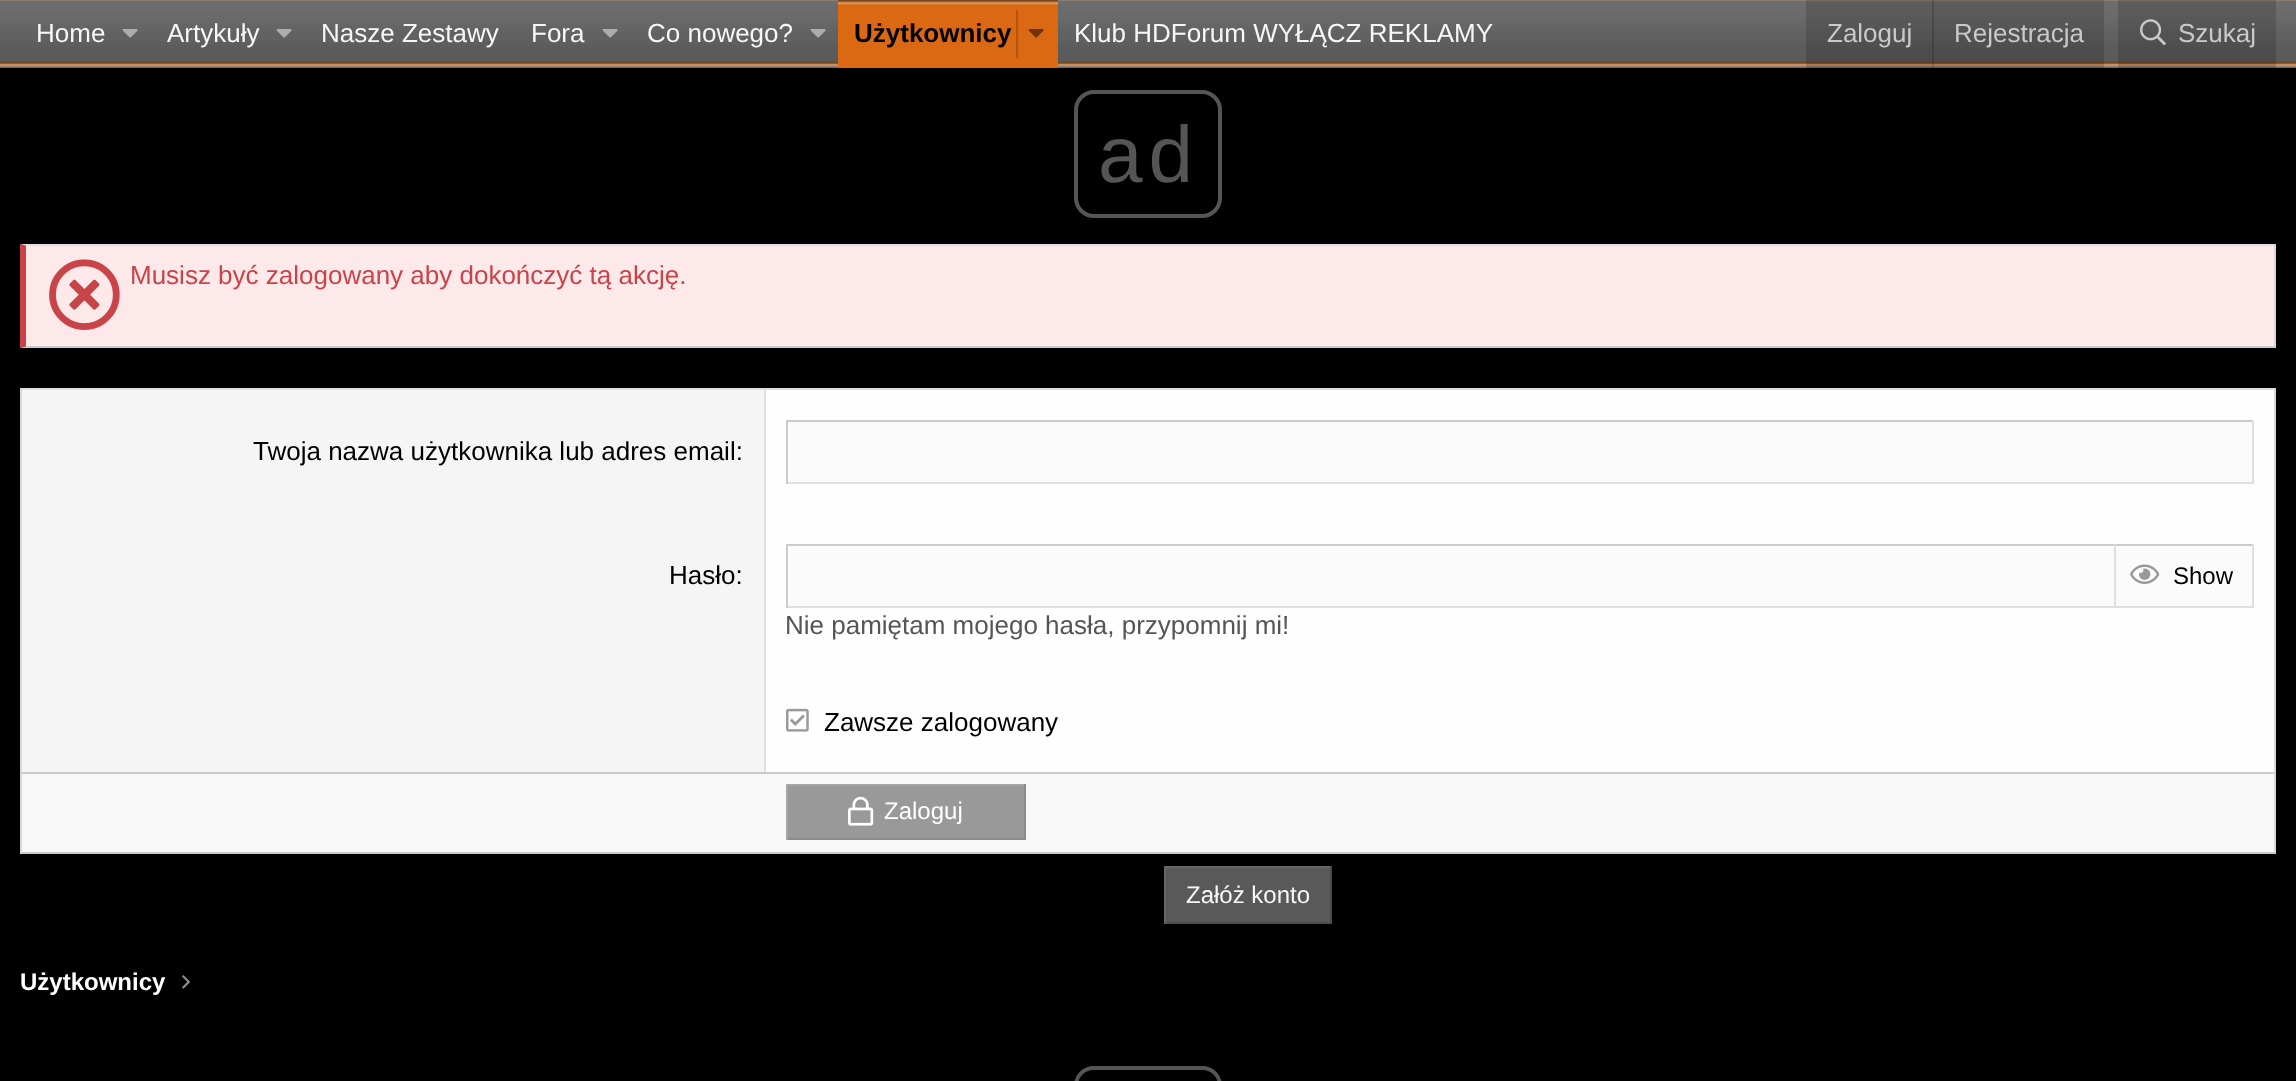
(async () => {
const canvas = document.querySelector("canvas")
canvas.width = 2296
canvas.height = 1081
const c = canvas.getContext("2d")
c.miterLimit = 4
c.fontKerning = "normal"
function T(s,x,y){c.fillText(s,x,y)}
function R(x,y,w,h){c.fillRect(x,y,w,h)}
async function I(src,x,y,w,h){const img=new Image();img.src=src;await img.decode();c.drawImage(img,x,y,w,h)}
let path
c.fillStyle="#000"
R(0,0,2296,1081)
await I("1.png",0,0,2296,68)
c.font="26px Liberation Sans"
c.fillStyle="#f7f7f7"
T("Home",36,42)
await I("2.png",122,29,16,9)
T("Artykuły",167,42)
await I("2.png",276,29,16,9)
T("Nasze Zestawy",321,42)
T("Fora",531,42)
await I("2.png",602,29,16,9)
T("Co nowego?",647,42)
await I("2.png",810,29,16,9)
await I("3.png",838,0,220,68)
c.font="bold 26px Liberation Sans"
c.fillStyle="#000"
T("Użytkownicy",854,42)
c.fillStyle="#b5560f"
R(1016,10,2,48)
await I("4.png",1028,29,16,9)
c.font="26px Liberation Sans"
c.fillStyle="#f7f7f7"
T("Klub HDForum WYŁĄCZ REKLAMY",1074,42)
c.fillStyle="#00000026"
R(1806,0,298,68)
c.fillStyle="#c9c9c9"
T("Zaloguj",1827,42)
c.fillStyle="#00000026"
R(1932,0,2,68)
c.fillStyle="#c9c9c9"
T("Rejestracja",1954,42)
c.fillStyle="#00000026"
R(2118,0,158,68)
await I("5.png",2140,19,26,27)
c.fillStyle="#c9c9c9"
T("Szukaj",2178,42)
c.beginPath()
c.roundRect(1076,92,144,124,18)
c.strokeStyle="#555"
c.lineWidth=4
c.stroke()
c.letterSpacing="6px"
c.font="80px Liberation Sans"
c.fillStyle="#555"
T("ad",1098,182)
c.fillStyle="#fde9e9"
R(26,246,2248,100)
c.fillStyle="#dfdfdf"
path = new Path2D("M20 244h2256l-2 2h-2248z")
c.fill(path)
c.fillStyle="#d8d8d8"
R(2274,244,2,104)
c.fillStyle="#cbcbcb"
path = new Path2D("M2276 348h-2256l6-2h2248z")
c.fill(path)
c.fillStyle="#c84448"
path = new Path2D("M20 348v-104l6 2v100z")
c.fill(path)
await I("6.png",49,259,71,71)
c.letterSpacing="0px"
c.font="26px Liberation Sans"
T("Musisz być zalogowany aby dokończyć tą akcję.",130,284)
c.fillStyle="#fefefe"
R(766,390,1508,382)
c.fillStyle="#dfdfdf"
R(20,388,2256,2)
c.fillStyle="#d8d8d8"
R(2274,388,2,466)
c.fillStyle="#cbcbcb"
R(20,852,2256,2)
c.fillStyle="#d8d8d8"
R(20,388,2,466)
c.fillStyle="#f5f5f5"
R(22,390,742,382)
c.fillStyle="#dfdfdf"
R(764,390,2,382)
c.fillStyle="#000"
T("Twoja nazwa użytkownika lub adres email:",253,460)
c.fillStyle="#fbfbfb"
R(788,422,1464,60)
c.fillStyle="#cbcbcb"
R(786,420,1468,2)
c.fillStyle="#dfdfdf"
R(2252,420,2,64)
R(786,482,1468,2)
c.fillStyle="#cbcbcb"
R(786,420,2,64)
c.fillStyle="#000"
T("Hasło:",669,584)
c.fillStyle="#fbfbfb"
R(788,546,1326,60)
c.fillStyle="#cbcbcb"
R(786,544,1468,2)
c.fillStyle="#dfdfdf"
R(786,606,1328,2)
c.fillStyle="#cbcbcb"
R(786,544,2,64)
c.fillStyle="#fbfbfb"
R(2116,546,136,60)
c.fillStyle="#dfdfdf"
R(2252,544,2,64)
R(2114,606,140,2)
R(2114,544,2,64)
await I("7.png",2130,564,30,20)
c.font="24px Liberation Sans"
c.fillStyle="#000"
T("Show",2173,584)
c.font="26px Liberation Sans"
c.fillStyle="#555"
T("Nie pamiętam mojego hasła, przypomnij mi!",785,634)
await I("8.png",786,708,23,24)
c.fillStyle="#000"
T("Zawsze zalogowany",824,731)
c.fillStyle="#f8f8f8"
R(22,774,2252,78)
c.fillStyle="#cbcbcb"
R(22,772,2252,2)
c.fillStyle="#999"
R(788,786,236,52)
c.fillStyle="#a6a6a6"
R(786,784,240,2)
c.fillStyle="#8c8c8c"
R(1024,784,2,56)
R(786,838,240,2)
c.fillStyle="#a6a6a6"
R(786,784,2,56)
await I("9.png",848,796,26,30)
c.font="24px Liberation Sans"
c.fillStyle="#fff"
T("Zaloguj",884,819)
c.fillStyle="#595959"
R(1166,868,164,54)
c.fillStyle="#666"
R(1164,866,168,2)
c.fillStyle="#4c4c4c"
R(1330,866,2,58)
R(1164,922,168,2)
c.fillStyle="#666"
R(1164,866,2,58)
c.fillStyle="#f7f7f7"
T("Załóż konto",1186,903)
c.font="bold 24px Liberation Sans"
c.fillStyle="#fff"
T("Użytkownicy",20,990)
await I("10.png",182,975,9,14)
c.beginPath()
c.roundRect(1076,1068,144,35,18)
c.stroke()
})()
